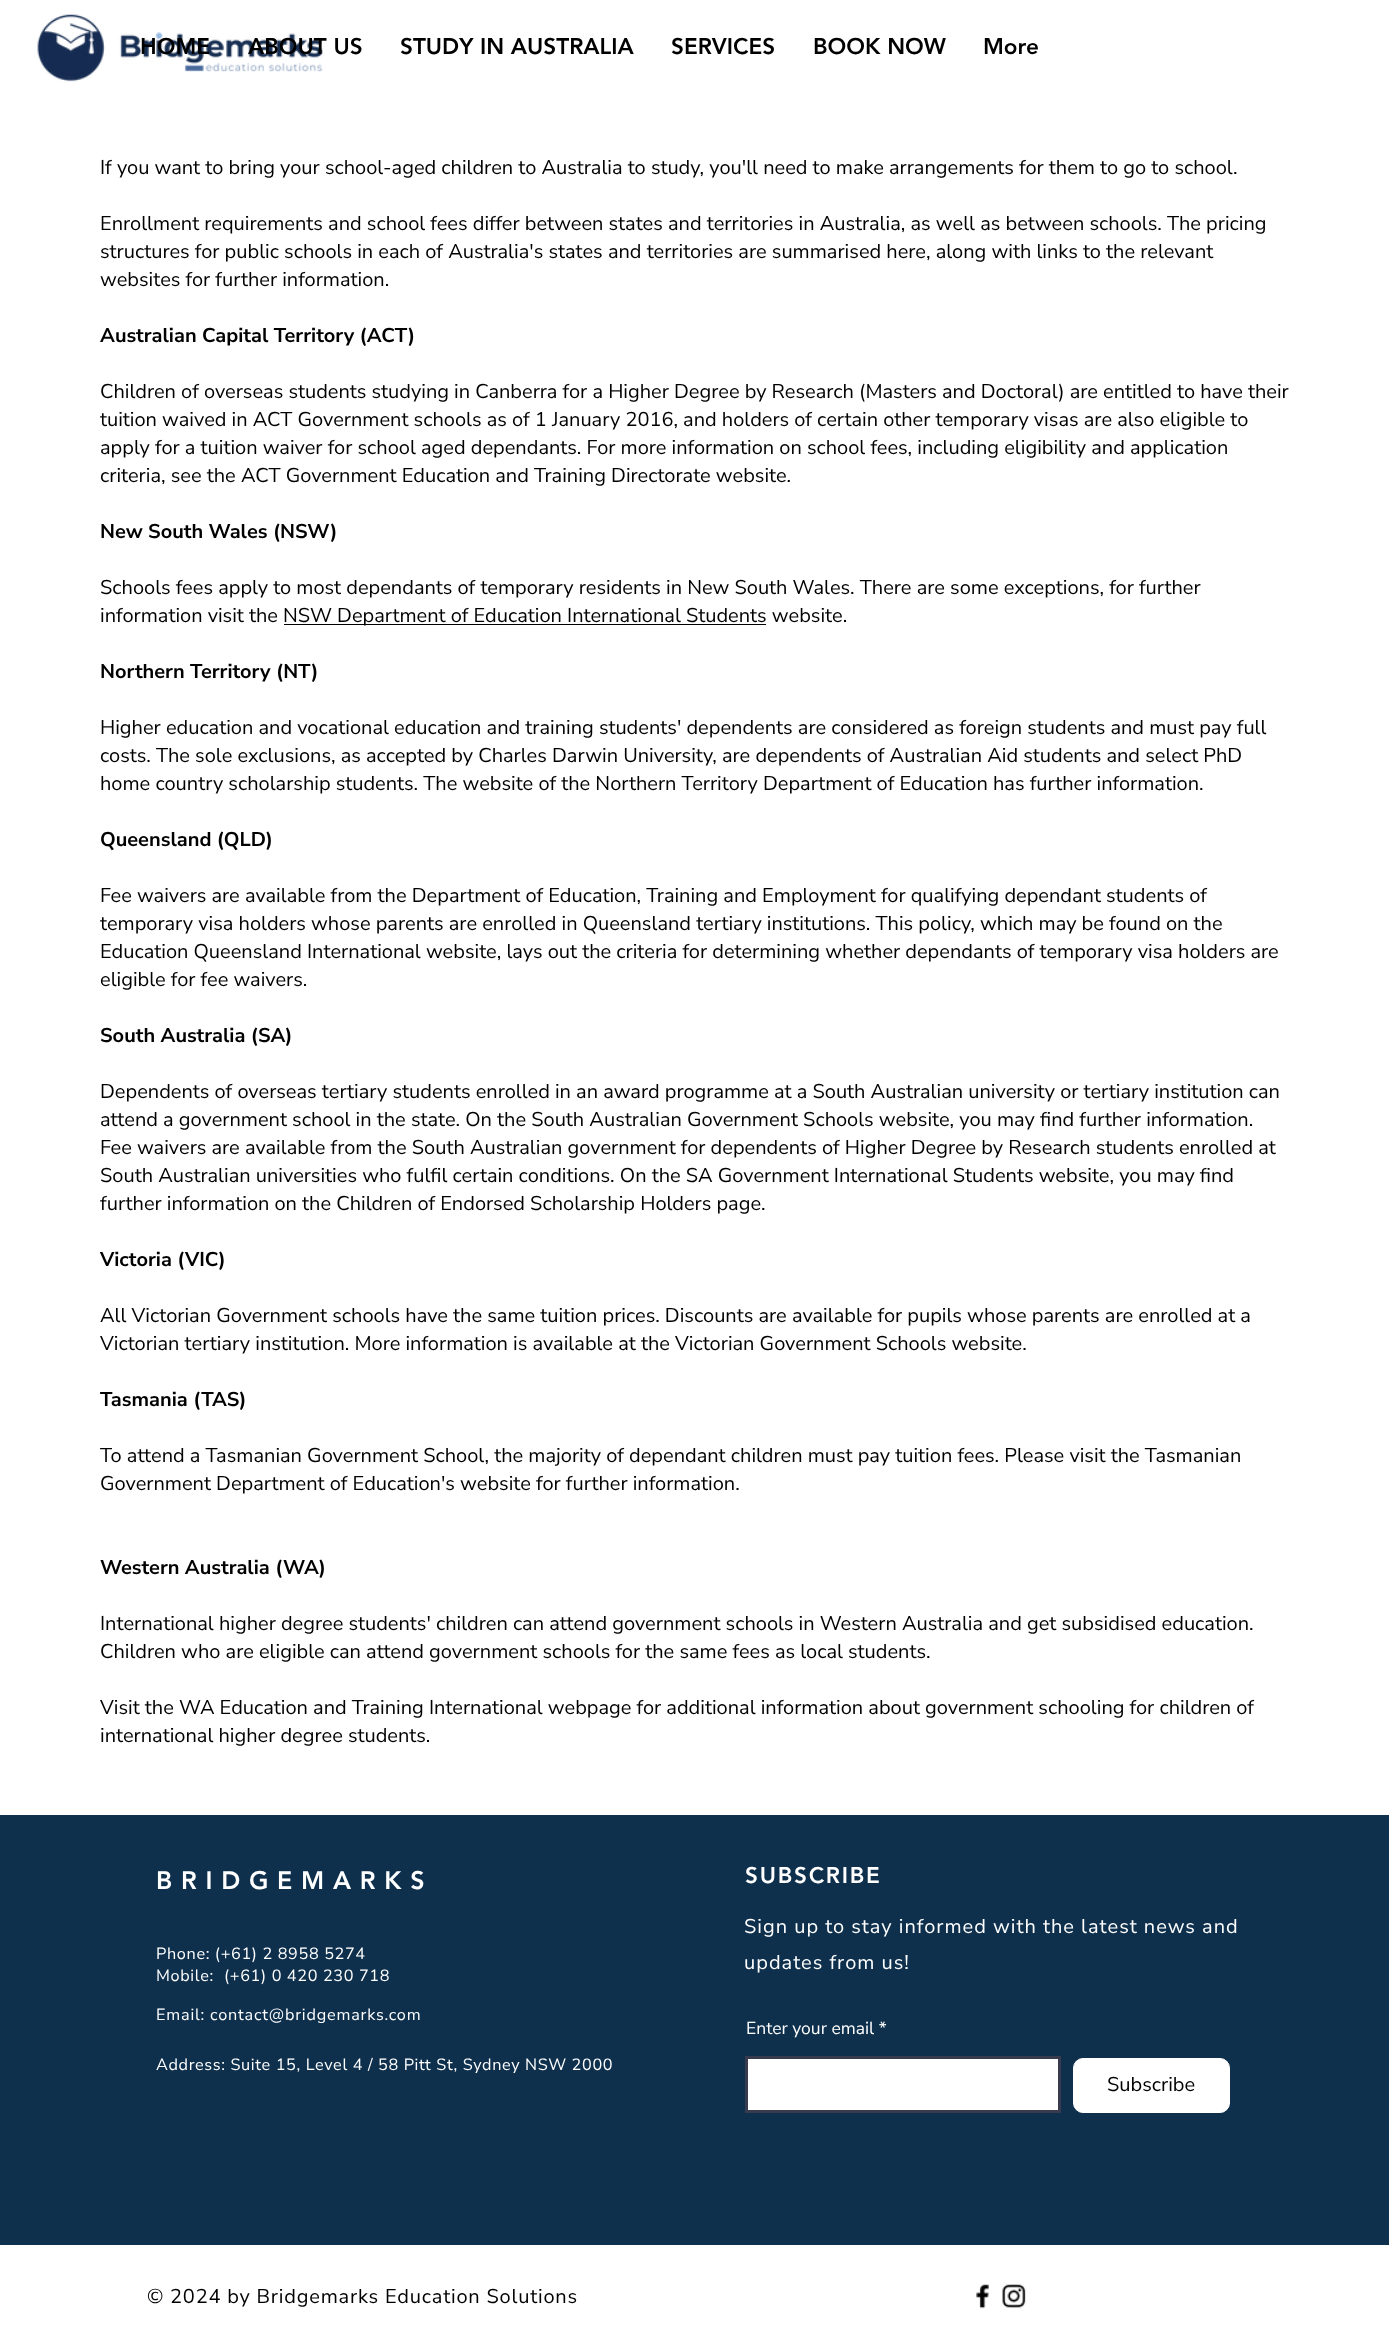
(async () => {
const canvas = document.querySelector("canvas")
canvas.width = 1389
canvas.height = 2343
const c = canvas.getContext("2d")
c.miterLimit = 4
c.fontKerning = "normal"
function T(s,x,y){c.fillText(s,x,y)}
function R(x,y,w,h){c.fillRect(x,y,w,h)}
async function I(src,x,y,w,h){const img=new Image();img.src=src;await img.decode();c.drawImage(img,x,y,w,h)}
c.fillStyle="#fff"
R(0,0,1389,2343)
await I("1.png",37,14,286,68)
c.font="900 22.5px 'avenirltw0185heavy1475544'"
c.fillStyle="#000"
T("HOME",140,54)
T("ABOUT US",248,54)
T("STUDY IN AUSTRALIA",400,54)
T("SERVICES",671,54)
T("BOOK NOW",813,54)
T("More",983,54)
c.font="20px Nunito Sans"
T("If you want to bring your school-aged children to Australia to study, you'll need to make arrangements for them to go to school.",100,174)
T("Enrollment requirements and school fees differ between states and territories in Australia, as well as between schools. The pricing",100,230)
T("structures for public schools in each of Australia's states and territories are summarised here, along with links to the relevant",100,258)
T("websites for further information.",100,286)
c.font="bold 20px Nunito Sans"
T("Australian Capital Territory (ACT)",100,342)
c.font="20px Nunito Sans"
T("Children of overseas students studying in Canberra for a Higher Degree by Research (Masters and Doctoral) are entitled to have their",100,398)
T("tuition waived in ACT Government schools as of 1 January 2016, and holders of certain other temporary visas are also eligible to",100,426)
T("apply for a tuition waiver for school aged dependants. For more information on school fees, including eligibility and application",100,454)
T("criteria, see the ACT Government Education and Training Directorate website.",100,482)
c.font="bold 20px Nunito Sans"
T("New South Wales (NSW)",100,538)
c.font="20px Nunito Sans"
T("Schools fees apply to most dependants of temporary residents in New South Wales. There are some exceptions, for further",100,594)
T("information visit the",100,622)
R(284,624,482,1)
T("NSW Department of Education International Students website.",283,622)
c.font="bold 20px Nunito Sans"
T("Northern Territory (NT)",100,678)
c.font="20px Nunito Sans"
T("Higher education and vocational education and training students' dependents are considered as foreign students and must pay full",100,734)
T("costs. The sole exclusions, as accepted by Charles Darwin University, are dependents of Australian Aid students and select PhD",100,762)
T("home country scholarship students. The website of the Northern Territory Department of Education has further information.",100,790)
c.font="bold 20px Nunito Sans"
T("Queensland (QLD)",100,846)
c.font="20px Nunito Sans"
T("Fee waivers are available from the Department of Education, Training and Employment for qualifying dependant students of",100,902)
T("temporary visa holders whose parents are enrolled in Queensland tertiary institutions. This policy, which may be found on the",100,930)
T("Education Queensland International website, lays out the criteria for determining whether dependants of temporary visa holders are",100,958)
T("eligible for fee waivers.",100,986)
c.font="bold 20px Nunito Sans"
T("South Australia (SA)",100,1042)
c.font="20px Nunito Sans"
T("Dependents of overseas tertiary students enrolled in an award programme at a South Australian university or tertiary institution can",100,1098)
T("attend a government school in the state. On the South Australian Government Schools website, you may find further information.",100,1126)
T("Fee waivers are available from the South Australian government for dependents of Higher Degree by Research students enrolled at",100,1154)
T("South Australian universities who fulfil certain conditions. On the SA Government International Students website, you may find",100,1182)
T("further information on the Children of Endorsed Scholarship Holders page.",100,1210)
c.font="bold 20px Nunito Sans"
T("Victoria (VIC)",100,1266)
c.font="20px Nunito Sans"
T("All Victorian Government schools have the same tuition prices. Discounts are available for pupils whose parents are enrolled at a",100,1322)
T("Victorian tertiary institution. More information is available at the Victorian Government Schools website.",100,1350)
c.font="bold 20px Nunito Sans"
T("Tasmania (TAS)",100,1406)
c.font="20px Nunito Sans"
T("To attend a Tasmanian Government School, the majority of dependant children must pay tuition fees. Please visit the Tasmanian",100,1462)
T("Government Department of Education's website for further information.",100,1490)
c.font="bold 20px Nunito Sans"
T("Western Australia (WA)",100,1574)
c.font="20px Nunito Sans"
T("International higher degree students' children can attend government schools in Western Australia and get subsidised education.",100,1630)
T("Children who are eligible can attend government schools for the same fees as local students.",100,1658)
T("Visit the WA Education and Training International webpage for additional information about government schooling for children of",100,1714)
T("international higher degree students.",100,1742)
c.fillStyle="#0e304d"
R(0,1815,1389,430)
c.letterSpacing="8.75px"
c.font="900 25px 'avenirltw0185heavy1475544'"
c.fillStyle="#fff"
T("BRIDGEMARKS",156,1889)
c.letterSpacing="0.65px"
c.font="16.25px Nunito Sans"
T("Phone: (+61) 2 8958 5274",156,1959)
T("Mobile:",156,1981)
T("(+61) 0 420 230 718",224,1981)
c.letterSpacing="0.8px"
T("Email: contact@bridgemarks.com",156,2020)
c.letterSpacing="0.65px"
T("Address: Suite 15, Level 4 / 58 Pitt St, Sydney NSW 2000",156,2070)
c.letterSpacing="1.75px"
c.font="900 22.5px 'avenirltw0185heavy1475544'"
T("SUBSCRIBE",745,1883)
c.letterSpacing="1px"
c.font="20px Nunito Sans"
T("Sign up to stay informed with the latest news and",744,1933)
T("updates from us!",744,1969)
c.letterSpacing="0px"
c.font="17.5px Nunito Sans"
T("Enter your email *",746,2034)
c.beginPath()
c.rect(746.5,2057.5,313,54)
c.fill()
c.strokeStyle="#373b4d"
c.lineWidth=3
c.stroke()
c.beginPath()
c.roundRect(1073.5,2058.5,156,54,9.5)
c.fill()
c.strokeStyle="#fff"
c.lineWidth=1
c.stroke()
c.font="20px Nunito Sans"
c.fillStyle="#000"
T("Subscribe",1107,2091)
c.letterSpacing="0.8px"
T("© 2024 by Bridgemarks Education Solutions",147,2303)
await I("2.png",976,2284,13,25)
await I("3.png",1002,2284,24,24)
})()
